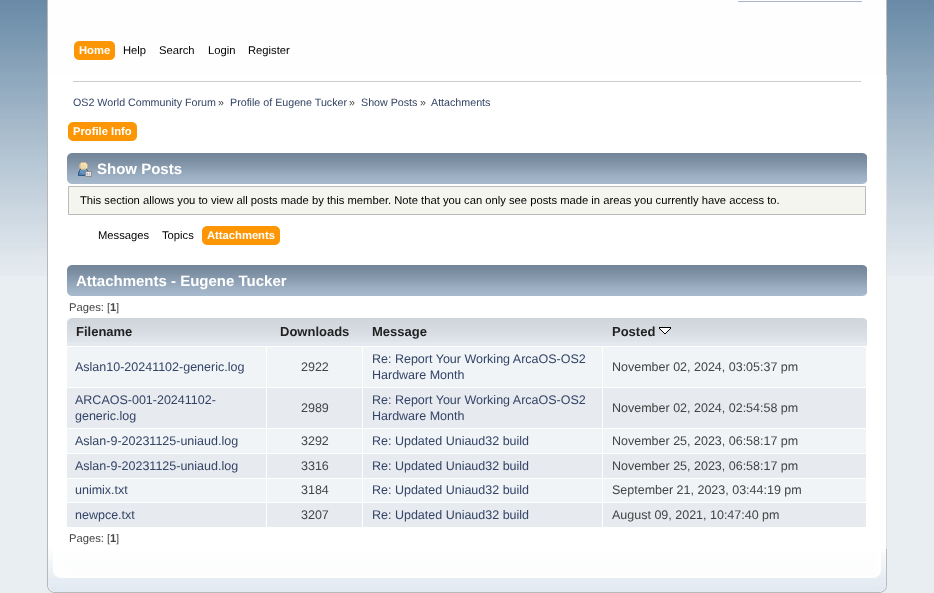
(async () => {
const canvas = document.querySelector("canvas")
canvas.width = 934
canvas.height = 593
const c = canvas.getContext("2d")
c.miterLimit = 4
c.fontKerning = "normal"
function T(s,x,y){c.fillText(s,x,y)}
function R(x,y,w,h){c.fillRect(x,y,w,h)}
async function I(src,x,y,w,h){const img=new Image();img.src=src;await img.decode();c.drawImage(img,x,y,w,h)}
c.fillStyle="#e9eef2"
R(0,0,934,593)
await I("1.png",0,0,934,276)
c.fillStyle="#fefefe"
R(48,0,838,75)
c.fillStyle="#b8b8b8"
R(47,0,1,75)
c.fillStyle="#bcbcbc"
R(886,0,1,75)
c.fillStyle="#a8b6cf"
R(738,1,124,1)
await I("2.png",79,41,36,19)
await I("3.png",74,41,5,19)
c.font="bold 11.23px Liberation Sans"
c.fillStyle="#fff"
T("Home",79,54)
c.font="11.23px Liberation Sans"
c.fillStyle="#000"
T("Help",123,54)
T("Search",159,54)
T("Login",208,54)
T("Register",248,54)
c.fillStyle="#fff"
R(48,75,838,474)
c.fillStyle="#b7b7b7"
R(47,75,1,474)
c.fillStyle="#e2e2e2"
R(886,75,1,474)
c.fillStyle="#ccc"
R(73,81,788,1)
c.font="10.7px Liberation Sans"
c.fillStyle="#346"
T("OS2 World Community Forum",73,106)
c.fillStyle="#444"
T("»",218,106)
c.fillStyle="#346"
T("Profile of Eugene Tucker",230,106)
c.fillStyle="#444"
T("»",349,106)
c.fillStyle="#346"
T("Show Posts",361,106)
c.fillStyle="#444"
T("»",420,106)
c.fillStyle="#346"
T("Attachments",431,106)
await I("4.png",73,122,64,19)
await I("5.png",68,122,5,19)
c.font="bold 11.23px Liberation Sans"
c.fillStyle="#fff"
T("Profile Info",73,135)
await I("6.png",67,153,796,31)
await I("7.png",863,153,4,31)
await I("8.png",78,162,14,15)
c.font="bold 15px Liberation Sans"
T("Show Posts",97,174)
c.fillStyle="#f5f5f0"
c.beginPath()
c.rect(68.5,186.5,797,28)
c.fill()
c.strokeStyle="#bbb"
c.stroke()
c.font="11.23px Liberation Sans"
c.fillStyle="#000"
T("This section allows you to view all posts made by this member. Note that you can only see posts made in areas you currently have access to.",80,204)
T("Messages",98,239)
T("Topics",162,239)
await I("9.png",207,226,73,19)
await I("5.png",202,226,5,19)
c.font="bold 11.23px Liberation Sans"
c.fillStyle="#fff"
T("Attachments",207,239)
await I("6.png",67,265,796,31)
await I("7.png",863,265,4,31)
c.font="bold 15px Liberation Sans"
T("Attachments - Eugene Tucker",76,286)
c.font="11.23px Liberation Sans"
c.fillStyle="#444"
T("Pages: [",69,311)
c.font="bold 11.23px Liberation Sans"
T("1",110,311)
c.font="11.23px Liberation Sans"
T("]",116,311)
c.fillStyle="#e3e9ef"
R(67,342,800,4)
await I("10.png",67,318,200,24)
c.font="bold 13px Liberation Sans"
c.fillStyle="#222"
T("Filename",76,336)
await I("11.png",267,318,96,24)
T("Downloads",280,336)
await I("12.png",363,318,240,24)
T("Message",372,336)
await I("13.png",603,318,264,24)
T("Posted",612,336)
await I("14.png",659,327,12,7)
c.fillStyle="#f0f4f7"
R(67,347,799,40)
c.font="12.5px Liberation Sans"
c.fillStyle="#346"
T("Aslan10-20241102-generic.log",75,371)
c.fillStyle="#444"
T("2922",301,371)
c.fillStyle="#346"
T("Re: Report Your Working ArcaOS-OS2",372,363)
T("Hardware Month",372,379)
c.fillStyle="#444"
T("November 02, 2024, 03:05:37 pm",612,371)
c.fillStyle="#e7eaef"
R(67,388,799,40)
c.fillStyle="#346"
T("ARCAOS-001-20241102-",75,404)
T("generic.log",75,420)
c.fillStyle="#444"
T("2989",301,412)
c.fillStyle="#346"
T("Re: Report Your Working ArcaOS-OS2",372,404)
T("Hardware Month",372,420)
c.fillStyle="#444"
T("November 02, 2024, 02:54:58 pm",612,412)
c.fillStyle="#f0f4f7"
R(67,429,799,24)
c.fillStyle="#346"
T("Aslan-9-20231125-uniaud.log",75,445)
c.fillStyle="#444"
T("3292",301,445)
c.fillStyle="#346"
T("Re: Updated Uniaud32 build",372,445)
c.fillStyle="#444"
T("November 25, 2023, 06:58:17 pm",612,445)
c.fillStyle="#e7eaef"
R(67,454,799,24)
c.fillStyle="#346"
T("Aslan-9-20231125-uniaud.log",75,470)
c.fillStyle="#444"
T("3316",301,470)
c.fillStyle="#346"
T("Re: Updated Uniaud32 build",372,470)
c.fillStyle="#444"
T("November 25, 2023, 06:58:17 pm",612,470)
c.fillStyle="#f0f4f7"
R(67,479,799,23)
c.fillStyle="#346"
T("unimix.txt",75,494)
c.fillStyle="#444"
T("3184",301,494)
c.fillStyle="#346"
T("Re: Updated Uniaud32 build",372,494)
c.fillStyle="#444"
T("September 21, 2023, 03:44:19 pm",612,494)
c.fillStyle="#e7eaef"
R(67,503,799,24)
c.fillStyle="#fff"
R(266,346,1,182)
c.fillStyle="#346"
T("newpce.txt",75,519)
c.fillStyle="#fff"
R(362,346,1,182)
c.fillStyle="#444"
T("3207",301,519)
c.fillStyle="#fff"
R(602,346,1,182)
c.fillStyle="#346"
T("Re: Updated Uniaud32 build",372,519)
c.fillStyle="#444"
T("August 09, 2021, 10:47:40 pm",612,519)
c.font="11.23px Liberation Sans"
T("Pages: [",69,542)
c.font="bold 11.23px Liberation Sans"
T("1",110,542)
c.font="11.23px Liberation Sans"
T("]",116,542)
await I("15.png",47,549,828,44)
await I("16.png",875,549,12,44)
})()
